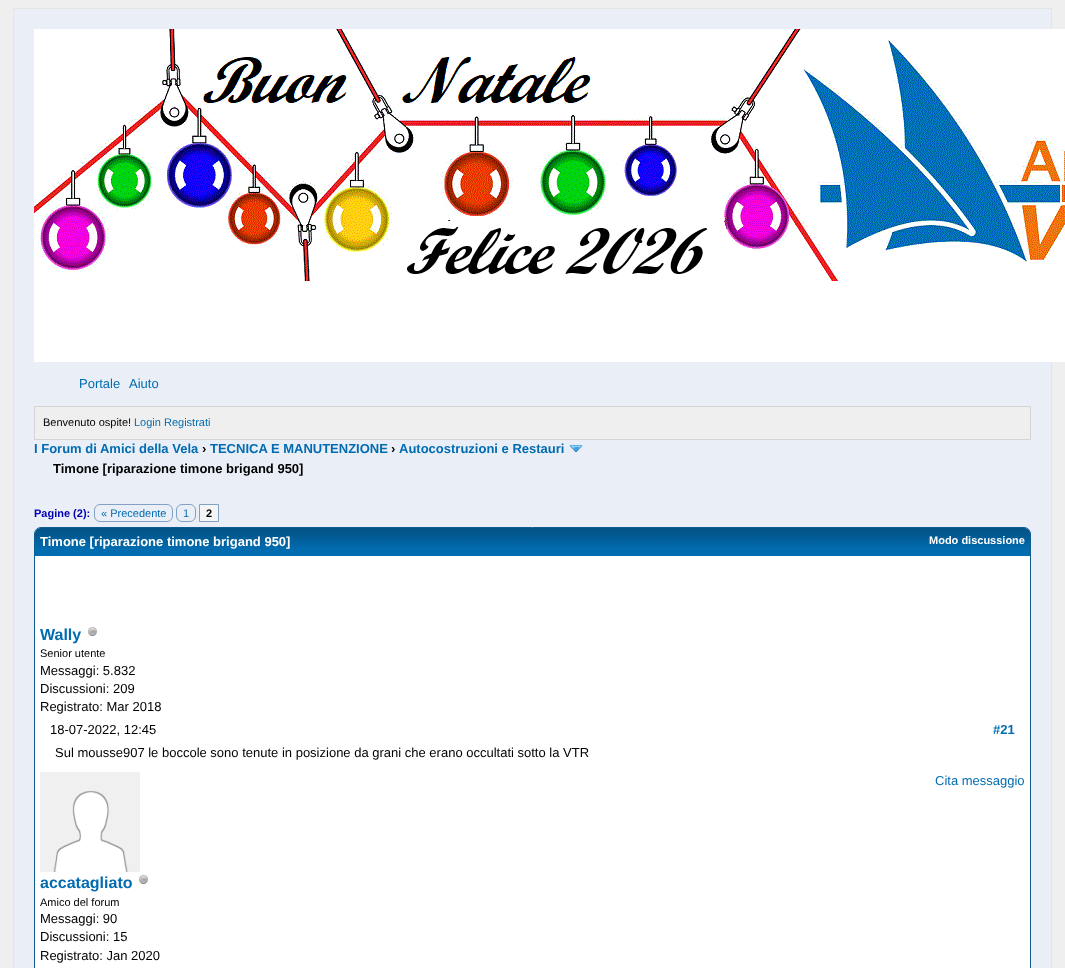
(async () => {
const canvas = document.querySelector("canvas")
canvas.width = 1065
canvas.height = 968
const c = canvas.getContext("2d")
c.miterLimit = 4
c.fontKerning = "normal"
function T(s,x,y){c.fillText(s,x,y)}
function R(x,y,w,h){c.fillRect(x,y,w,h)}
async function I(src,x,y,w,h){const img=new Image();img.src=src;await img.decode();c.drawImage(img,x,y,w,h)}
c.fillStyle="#efefef"
R(0,0,1065,968)
c.fillStyle="#eaeef7"
c.beginPath()
c.rect(13.5,8.5,1038,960)
c.fill()
c.strokeStyle="#e4e4e4"
c.stroke()
await I("1.png",34,29,1031,333)
c.font="13px Liberation Sans"
c.fillStyle="#026cb1"
T("Portale",79,388)
T("Aiuto",129,388)
c.fillStyle="#efefef"
c.beginPath()
c.rect(34.5,406.5,996,33)
c.fill()
c.strokeStyle="#d4d4d4"
c.stroke()
c.font="11px Liberation Sans"
c.fillStyle="#000"
T("Benvenuto ospite!",43,426)
c.fillStyle="#026cb1"
T("Login Registrati",134,426)
c.font="bold 13px Liberation Sans"
T("I Forum di Amici della Vela",34,453)
c.fillStyle="#000"
T("›",202,453)
c.fillStyle="#026cb1"
T("TECNICA E MANUTENZIONE",210,453)
c.fillStyle="#000"
T("›",391,453)
c.fillStyle="#026cb1"
T("Autocostruzioni e Restauri",399,453)
await I("2.png",569,445,14,7)
c.fillStyle="#000"
T("Timone [riparazione timone brigand 950]",53,473)
c.font="bold 11px Liberation Sans"
c.fillStyle="#0000b3"
T("Pagine (2):",34,517)
c.beginPath()
c.roundRect(94.5,504.5,78,17,5.5)
c.strokeStyle="#81a2c4"
c.stroke()
c.font="11px Liberation Sans"
c.fillStyle="#026cb1"
T("« Precedente",101,517)
c.beginPath()
c.roundRect(176.5,504.5,19,17,5.5)
c.stroke()
T("1",183,517)
c.fillStyle="#f5f5f5"
c.beginPath()
c.rect(199.5,504.5,19,17)
c.fill()
c.stroke()
c.font="bold 11px Liberation Sans"
c.fillStyle="#000"
T("2",206,517)
c.fillStyle="#fff"
c.beginPath()
c.roundRect(34.5,527.5,996,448,6.5)
c.fill()
c.strokeStyle="#0f5c8e"
c.stroke()
c.fillStyle="#026cb1"
c.beginPath()
c.roundRect(35,528,995,28,[6,6,0,0])
c.fill()
await I("3.png",35,528,995,20)
c.font="bold 13px Liberation Sans"
c.fillStyle="#fff"
T("Timone [riparazione timone brigand 950]",40,546)
c.font="bold 11px Liberation Sans"
T("Modo discussione",929,544)
c.font="bold 16px Liberation Sans"
c.fillStyle="#026cb1"
T("Wally",40,640)
await I("4.png",88,627,9,9)
c.font="11px Liberation Sans"
c.fillStyle="#000"
T("Senior utente",40,657)
c.font="13px Liberation Sans"
T("Messaggi: 5.832",40,675)
T("Discussioni: 209",40,693)
T("Registrato: Mar 2018",40,711)
T("18-07-2022, 12:45",50,734)
c.font="bold 13px Liberation Sans"
c.fillStyle="#026cb1"
T("#21",993,734)
c.font="13px Liberation Sans"
c.fillStyle="#000"
T("Sul mousse907 le boccole sono tenute in posizione da grani che erano occultati sotto la VTR",55,757)
c.fillStyle="#026cb1"
T("Cita messaggio",935,785)
await I("5.png",40,772,100,100)
c.font="bold 16px Liberation Sans"
T("accatagliato",40,888)
await I("4.png",139,875,9,9)
c.font="11px Liberation Sans"
c.fillStyle="#000"
T("Amico del forum",40,906)
c.font="13px Liberation Sans"
T("Messaggi: 90",40,923)
T("Discussioni: 15",40,941)
T("Registrato: Jan 2020",40,960)
})()
